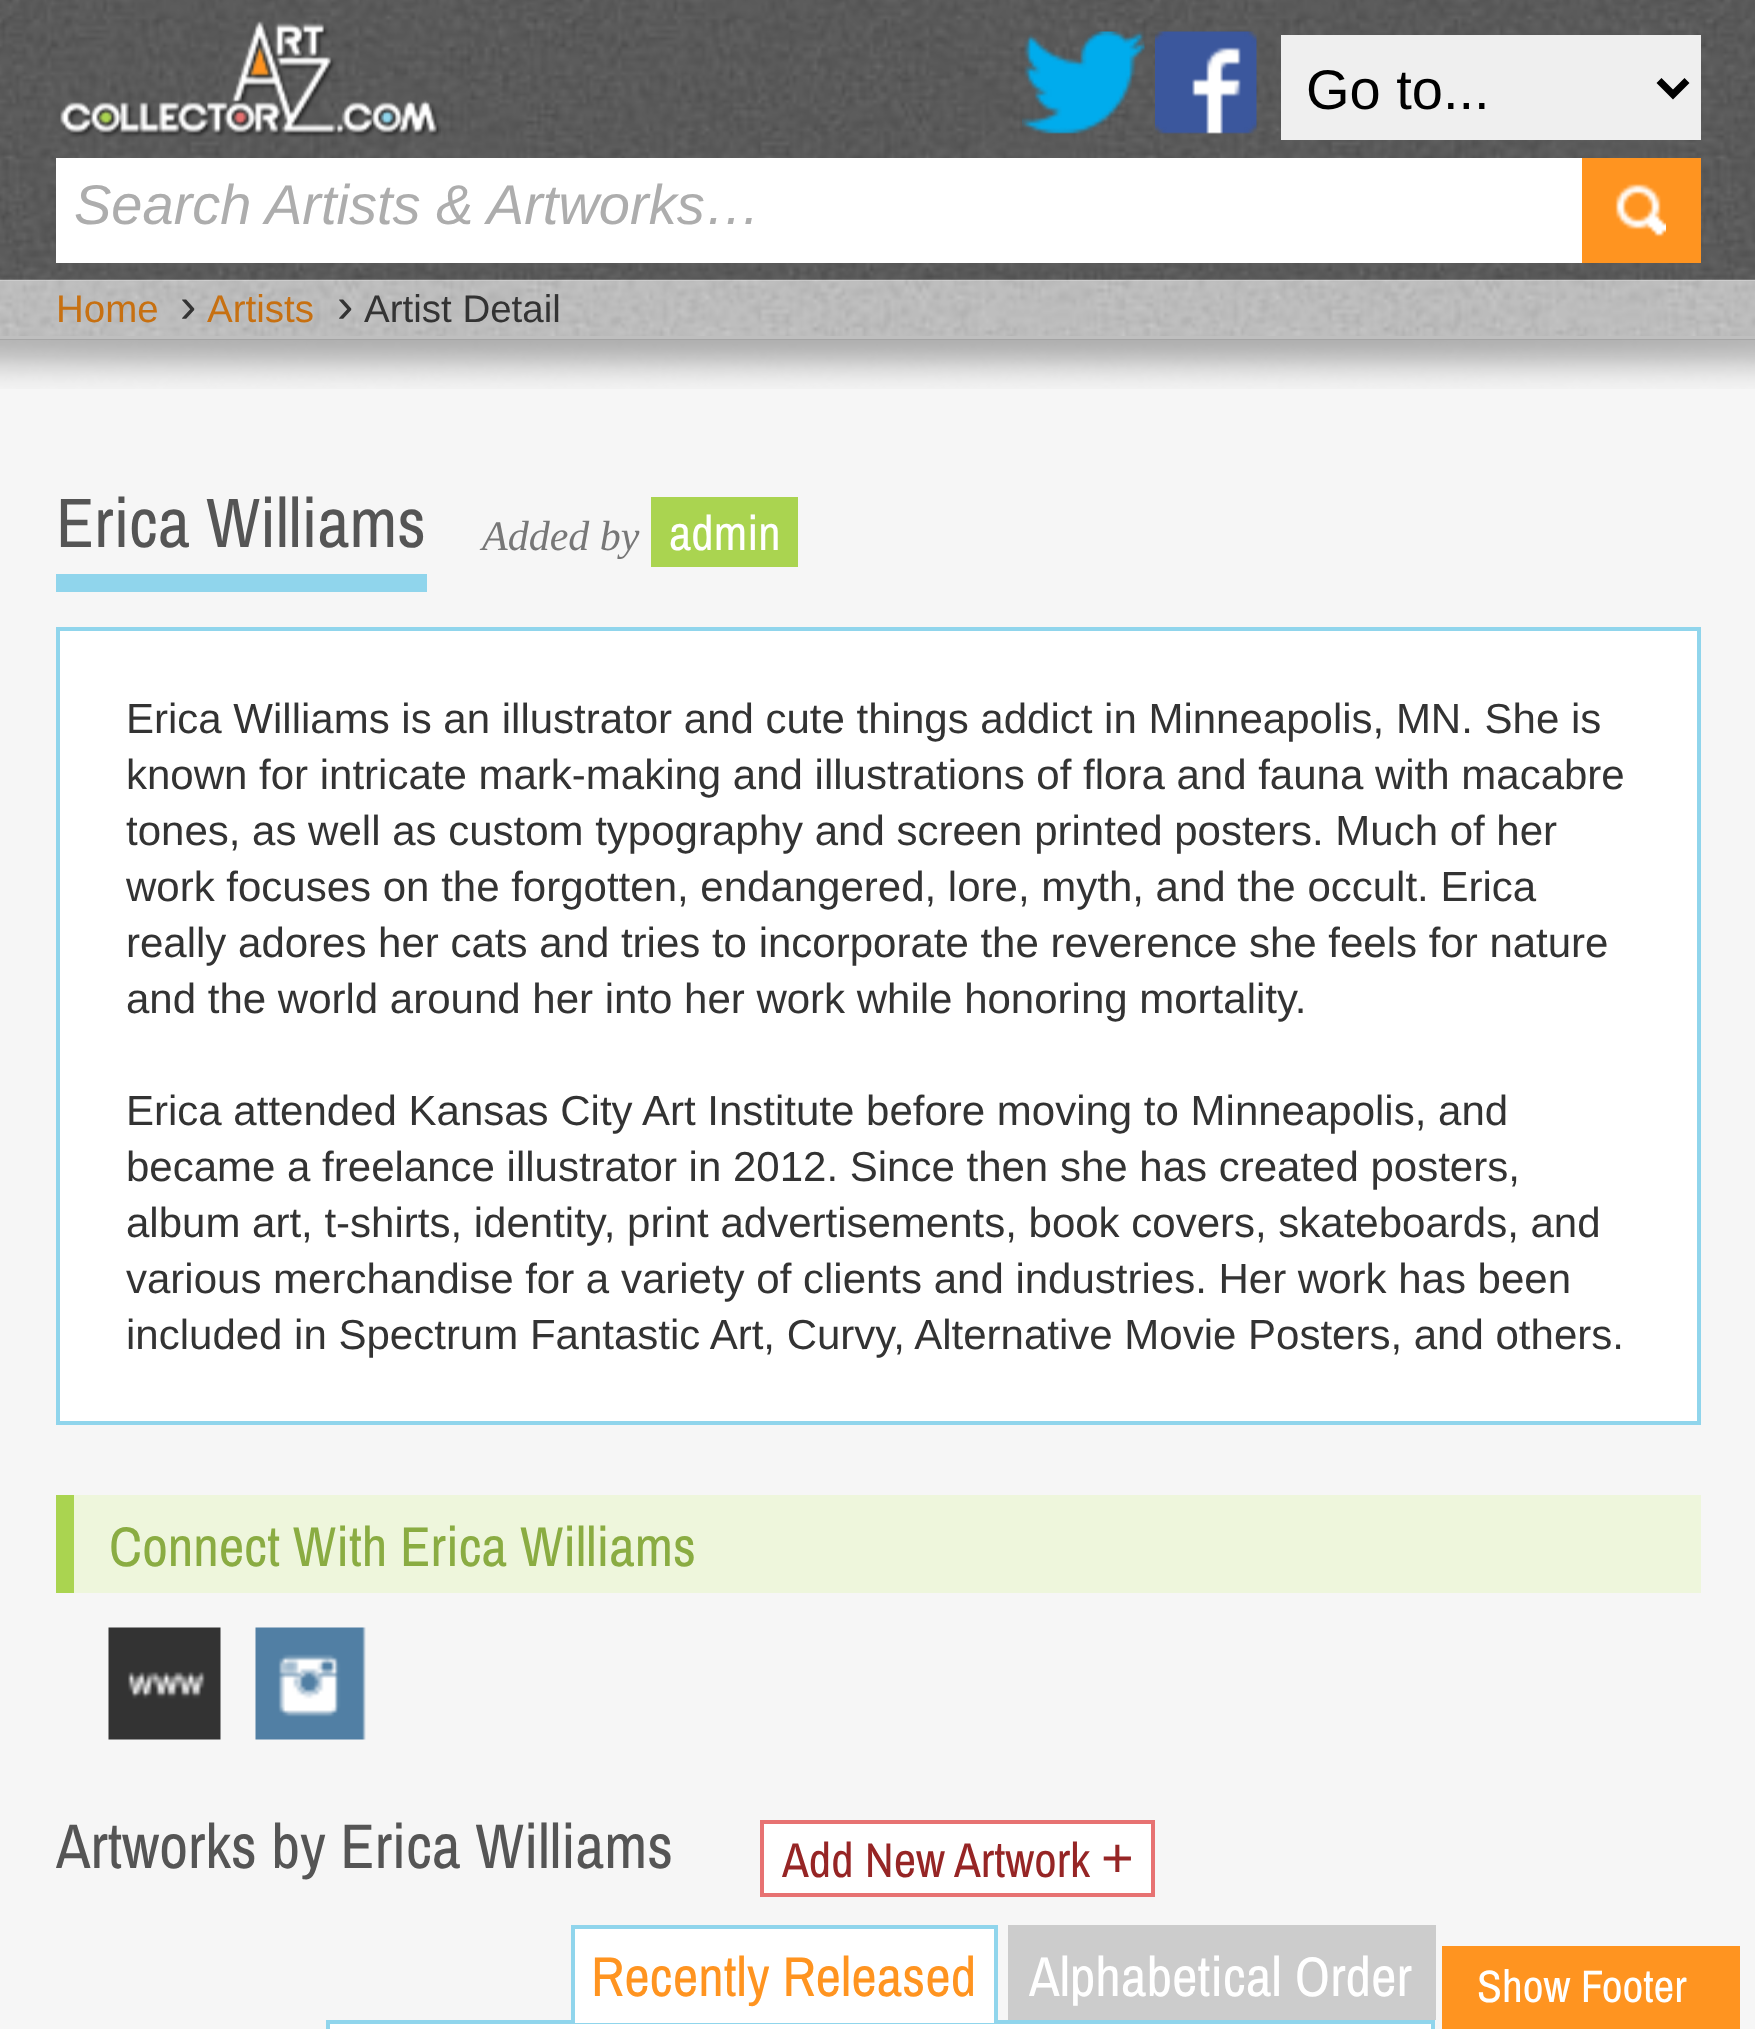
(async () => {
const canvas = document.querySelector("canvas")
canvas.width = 1755
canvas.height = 2029
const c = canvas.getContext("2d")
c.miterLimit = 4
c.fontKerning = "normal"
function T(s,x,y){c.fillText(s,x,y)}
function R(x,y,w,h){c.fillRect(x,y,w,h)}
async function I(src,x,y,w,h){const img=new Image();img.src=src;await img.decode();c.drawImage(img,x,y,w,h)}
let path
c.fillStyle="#f6f6f6"
R(0,0,1755,2029)
await I("1.png",0,0,1755,280)
await I("2.png",60,21,381,116)
await I("3.png",1022,31,123,103)
await I("4.png",1155,31,102,103)
c.fillStyle="#efefef"
R(1281,35,420,105)
path = new Path2D("M1659 80.5l14 14l14-14")
c.strokeStyle="#000"
c.lineWidth=7
c.stroke(path)
c.font="56px Liberation Sans"
c.fillStyle="#000"
T("Go to...",1306,109)
c.fillStyle="#fff"
R(56,158,1526,105)
c.font="italic 56px Liberation Sans"
c.fillStyle="#adadad"
T("Search Artists & Artworks…",74,224)
c.fillStyle="#ff9420"
R(1582,158,119,105)
await I("5.png",1615,183,51,54)
await I("6.png",0,279,1755,57)
c.fillStyle="#bfbfbf"
R(0,336,1755,4)
c.font="38.5px Liberation Sans"
c.fillStyle="#c77011"
T("Home",56,322)
c.font="49px Liberation Sans"
c.fillStyle="#333"
T("›",180,322)
c.font="38.5px Liberation Sans"
c.fillStyle="#c77011"
T("Artists",207,322)
c.font="49px Liberation Sans"
c.fillStyle="#333"
T("›",337,322)
c.font="38.5px Liberation Sans"
T("Artist Detail",364,322)
await I("7.png",0,339,1755,50)
c.fillStyle="#90d5ec"
R(56,574,371,18)
c.font="70px Archivo Narrow"
c.fillStyle="#555"
T("Erica Williams",56,547)
c.font="italic 42px Liberation Serif"
c.fillStyle="#777"
T("Added by",482,550)
c.fillStyle="#aad450"
R(651,497,147,70)
c.font="49px Archivo Narrow"
c.fillStyle="#fff"
T("admin",669,550)
c.beginPath()
c.rect(58,629,1641,794)
c.fill()
c.strokeStyle="#90d5ec"
c.lineWidth=4
c.stroke()
c.font="42px Liberation Sans"
c.fillStyle="#333"
T("Erica Williams is an illustrator and cute things addict in Minneapolis, MN. She is",126,733)
T("known for intricate mark-making and illustrations of flora and fauna with macabre",126,789)
T("tones, as well as custom typography and screen printed posters. Much of her",126,845)
T("work focuses on the forgotten, endangered, lore, myth, and the occult. Erica",126,901)
T("really adores her cats and tries to incorporate the reverence she feels for nature",126,957)
T("and the world around her into her work while honoring mortality.",126,1013)
T("Erica attended Kansas City Art Institute before moving to Minneapolis, and",126,1125)
T("became a freelance illustrator in 2012. Since then she has created posters,",126,1181)
T("album art, t-shirts, identity, print advertisements, book covers, skateboards, and",126,1237)
T("various merchandise for a variety of clients and industries. Her work has been",126,1293)
T("included in Spectrum Fantastic Art, Curvy, Alternative Movie Posters, and others.",126,1349)
c.fillStyle="#eef6dc"
R(74,1495,1627,98)
c.fillStyle="#aad450"
R(56,1495,18,98)
c.font="56px Archivo Narrow"
c.fillStyle="#8aac42"
T("Connect With Erica Williams",109,1566)
await I("8.png",108,1627,113,113)
await I("9.png",255,1627,111,113)
c.font="63px Archivo Narrow"
c.fillStyle="#555"
T("Artworks by Erica Williams",56,1868)
c.fillStyle="#fff"
c.beginPath()
c.rect(762,1822,391,73)
c.fill()
c.strokeStyle="#e77272"
c.stroke()
c.font="49px Archivo Narrow"
c.fillStyle="#962525"
T("Add New Artwork",782,1877)
c.font="56px Liberation Sans"
T("+",1101,1877)
c.fillStyle="#fff"
c.beginPath()
c.rect(328,2022,1105,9)
c.fill()
c.strokeStyle="#90d5ec"
c.stroke()
R(575,1929,419,94)
c.fillStyle="#90d5ec"
R(571,1925,427,4)
R(994,1925,4,98)
R(571,1925,4,98)
c.font="56px Archivo Narrow"
c.fillStyle="#ff9420"
T("Recently Released",591,1996)
c.fillStyle="#ccc"
R(1008,1925,428,95)
c.fillStyle="#fff"
T("Alphabetical Order",1029,1996)
c.fillStyle="#ff9420"
R(1442,1946,298,83)
c.font="45.5px Archivo Narrow"
c.fillStyle="#fff"
T("Show Footer",1477,2002)
})()
